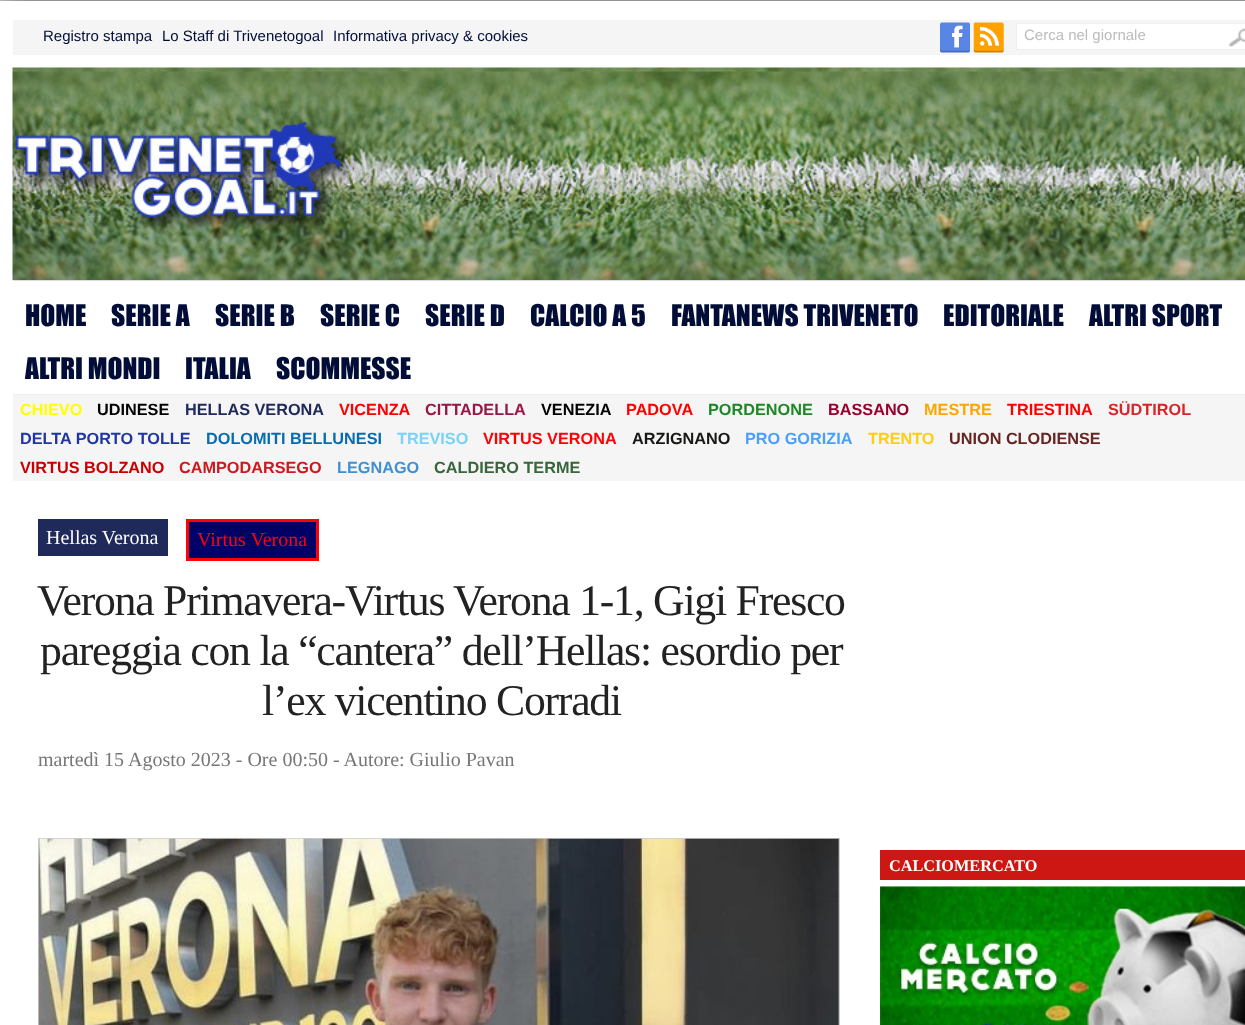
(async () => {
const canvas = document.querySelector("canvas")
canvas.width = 1245
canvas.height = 1025
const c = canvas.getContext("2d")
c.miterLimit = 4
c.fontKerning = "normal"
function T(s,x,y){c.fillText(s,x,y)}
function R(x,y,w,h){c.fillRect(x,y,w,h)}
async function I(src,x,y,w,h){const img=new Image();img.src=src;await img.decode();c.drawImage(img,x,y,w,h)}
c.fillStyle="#ddd"
R(0,0,1245,1025)
c.fillStyle="#444"
c.filter="blur(15.5px)"
c.beginPath()
c.rect(0,1,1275,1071)
c.fill()
c.filter="none"
c.fillStyle="#fff"
R(0,1,1245,1024)
c.fillStyle="#f5f5f5"
R(13,20,1232,35)
c.font="15px Liberation Sans"
c.fillStyle="#010d37"
T("Registro stampa",43,41)
T("Lo Staff di Trivenetogoal",162,41)
T("Informativa privacy & cookies",333,41)
await I("1.png",940,22,30,31)
await I("2.png",973,22,31,31)
c.fillStyle="#fff"
c.beginPath()
c.rect(1016.5,23.5,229,26)
c.fill()
c.strokeStyle="#efefef"
c.stroke()
c.fillStyle="#bcbcbc"
T("Cerca nel giornale",1024,40)
await I("3.png",1228,28,17,19)
await I("4.png",12,67,1233,213)
c.fillStyle="#ddd"
R(13,280,1232,1)
c.fillStyle="#efefef"
R(13,394,1232,1)
c.font="27.5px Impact"
c.fillStyle="#010d37"
T("HOME",25,326)
T("SERIE A",111,326)
T("SERIE B",215,326)
T("SERIE C",320,326)
T("SERIE D",425,326)
T("CALCIO A 5",530,326)
T("FANTANEWS TRIVENETO",671,326)
T("EDITORIALE",943,326)
T("ALTRI SPORT",1089,326)
T("ALTRI MONDI",25,379)
T("ITALIA",185,379)
T("SCOMMESSE",276,379)
c.fillStyle="#f5f5f5"
R(13,395,1232,86)
c.font="bold 16.25px Liberation Sans"
c.fillStyle="#ff0"
T("CHIEVO",20,415)
c.fillStyle="#000"
T("UDINESE",97,415)
c.fillStyle="#202a5a"
T("HELLAS VERONA",185,415)
c.fillStyle="#f00"
T("VICENZA",339,415)
c.fillStyle="#991648"
T("CITTADELLA",425,415)
c.fillStyle="#000"
T("VENEZIA",541,415)
c.fillStyle="#f00"
T("PADOVA",626,415)
c.fillStyle="#1e8728"
T("PORDENONE",708,415)
c.fillStyle="#99002f"
T("BASSANO",828,415)
c.fillStyle="#ffa500"
T("MESTRE",924,415)
c.fillStyle="#f00"
T("TRIESTINA",1007,415)
c.fillStyle="#da2429"
T("SÜDTIROL",1108,415)
c.fillStyle="#2036a5"
T("DELTA PORTO TOLLE",20,444)
c.fillStyle="#076db0"
T("DOLOMITI BELLUNESI",206,444)
c.fillStyle="#78d3f7"
T("TREVISO",397,444)
c.fillStyle="#ff0007"
T("VIRTUS VERONA",483,444)
c.fillStyle="#191815"
T("ARZIGNANO",632,444)
c.fillStyle="#4a9ffd"
T("PRO GORIZIA",745,444)
c.fillStyle="#fece14"
T("TRENTO",868,444)
c.fillStyle="#662523"
T("UNION CLODIENSE",949,444)
c.fillStyle="#ca0000"
T("VIRTUS BOLZANO",20,473)
c.fillStyle="#cf181d"
T("CAMPODARSEGO",179,473)
c.fillStyle="#4090d2"
T("LEGNAGO",337,473)
c.fillStyle="#38653b"
T("CALDIERO TERME",434,473)
c.fillStyle="#202a5a"
R(38,519,130,37)
c.font="20px Liberation Serif"
c.fillStyle="#fff"
T("Hellas Verona",46,544)
c.fillStyle="#006"
c.beginPath()
c.rect(187.5,520.5,130,39)
c.fill()
c.strokeStyle="#ff0007"
c.lineWidth=3
c.stroke()
c.fillStyle="#ff0007"
T("Virtus Verona",197,546)
c.letterSpacing="-1.25px"
c.font="43.75px Liberation Serif"
c.fillStyle="#222"
T("Verona Primavera-Virtus Verona 1-1, Gigi Fresco",37,615)
T("pareggia con la “cantera” dell’Hellas: esordio per",40,665)
T("l’ex vicentino Corradi",262,715)
c.letterSpacing="0px"
c.font="20px Liberation Serif"
c.fillStyle="#777"
T("martedì 15 Agosto 2023 - Ore 00:50 - Autore: Giulio Pavan",38,766)
c.strokeStyle="#ccc"
c.lineWidth=1
c.strokeRect(38.5,838.5,801,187)
await I("5.png",38,838,801,187)
c.fillStyle="#cd1713"
R(880,850,365,30)
c.font="bold 16.25px Liberation Serif"
c.fillStyle="#fff"
T("CALCIOMERCATO",889,871)
await I("6.png",880,886,365,139)
})()
